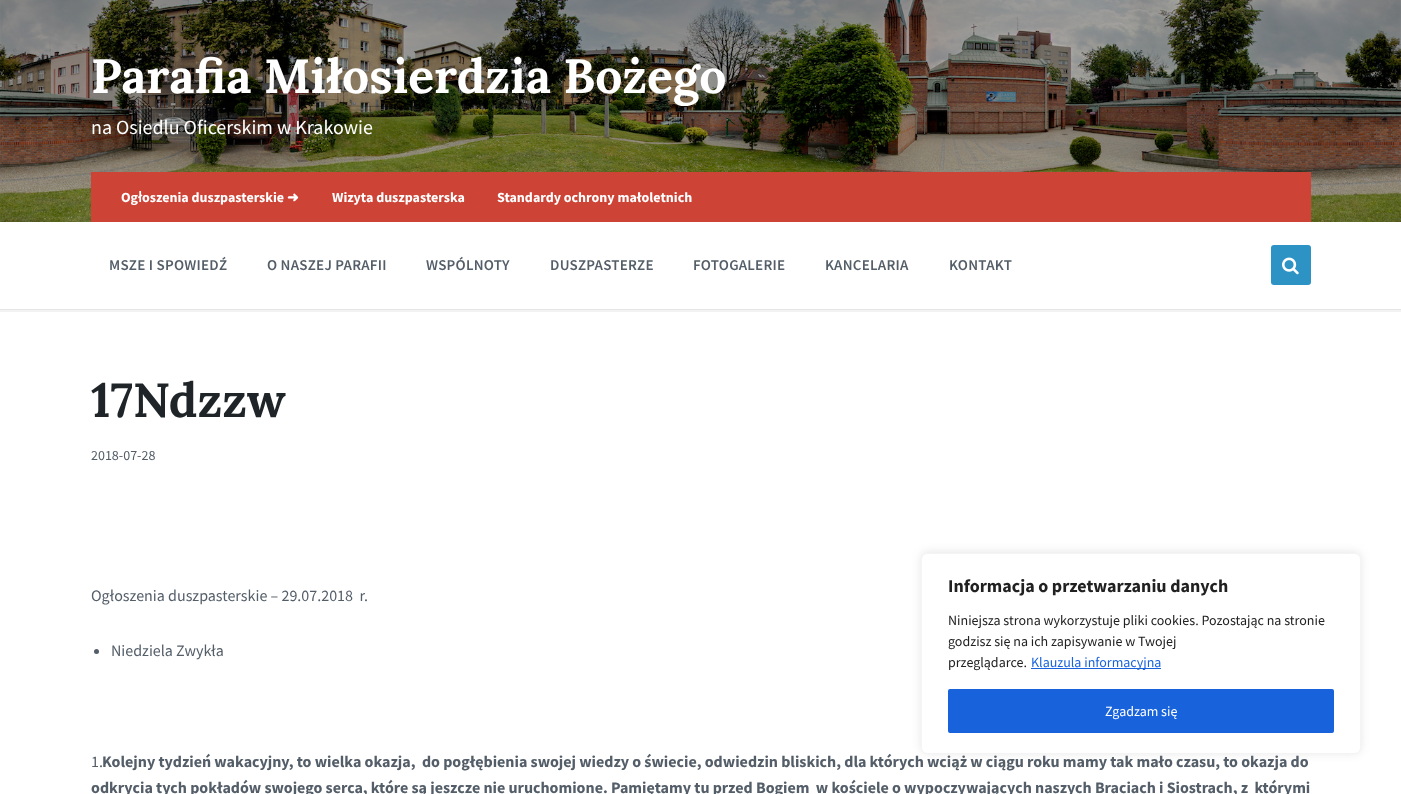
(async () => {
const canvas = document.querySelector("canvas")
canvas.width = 1401
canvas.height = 794
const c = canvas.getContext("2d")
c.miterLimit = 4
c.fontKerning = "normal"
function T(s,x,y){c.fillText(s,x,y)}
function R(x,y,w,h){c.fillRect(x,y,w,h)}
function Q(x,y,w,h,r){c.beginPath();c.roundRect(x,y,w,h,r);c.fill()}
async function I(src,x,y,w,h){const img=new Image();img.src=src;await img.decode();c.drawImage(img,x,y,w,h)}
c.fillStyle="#fff"
R(0,0,1401,794)
c.strokeStyle="#f2f2f2"
c.lineWidth=2
c.strokeRect(-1,221,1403,90)
await I("1.png",0,0,1401,222)
c.font="bold 48px Lora"
T("Parafia Miłosierdzia Bożego",91,93)
c.font="20px Source Sans Pro"
T("na Osiedlu Oficerskim w Krakowie",91,134)
c.fillStyle="#cd4335"
R(91,172,1220,50)
c.font="bold 14px Source Sans Pro"
c.fillStyle="#fff"
T("Og",121,202)
c.font="bold 14px DejaVu Sans"
T("ł",138,202)
c.font="bold 14px Source Sans Pro"
T("oszenia duszpasterskie",142,202)
c.font="bold 14px DejaVu Sans"
T("➜",287,202)
c.font="bold 14px Source Sans Pro"
T("Wizyta duszpasterska",332,202)
T("Standardy ochrony małoletnich",497,202)
c.fillStyle="#e6e6e6"
R(0,309,1401,1)
c.letterSpacing="0.25px"
c.font="600 15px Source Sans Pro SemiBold"
c.fillStyle="#545e69"
T("MSZE I SPOWIEDŹ",109,270)
T("O NASZEJ PARAFII",267,270)
T("WSPÓLNOTY",426,270)
T("DUSZPASTERZE",550,270)
T("FOTOGALERIE",693,270)
T("KANCELARIA",825,270)
T("KONTAKT",949,270)
c.fillStyle="#2d93c5"
Q(1271,245,40,40,3)
await I("2.png",1282,257,17,18)
c.letterSpacing="0px"
c.font="bold 48px Lora"
c.fillStyle="#1e2427"
T("17Ndzzw",91,417)
c.font="14px Source Sans Pro"
c.fillStyle="#545e69"
T("2018-07-28",91,460)
c.font="16px Source Sans Pro"
T("Ogłoszenia duszpasterskie – 29.07.2018  r.",91,601)
c.beginPath()
c.arc(96.5,651.5,2.5,0,7)
c.fill()
T("Niedziela Zwykła",111,656)
T("1.",91,767)
c.font="bold 16px Source Sans Pro"
T("Kolejny tydzień wakacyjny, to wielka okazja,  do pogłębienia swojej wiedzy o świecie, odwiedzin bliskich, dla których wciąż w ciągu roku mamy tak mało czasu, to okazja do",102,767)
T("odkrycia tych pokładów swojego serca, które są jeszcze nie uruchomione. Pamiętamy tu przed Bogiem  w kościele o wypoczywających naszych Braciach i Siostrach, z  którymi",91,793)
c.fillStyle="#acabab4d"
c.filter="blur(5px)"
c.beginPath()
c.roundRect(921,552,440,201,6)
c.fill()
c.filter="none"
c.fillStyle="#fff"
c.beginPath()
c.roundRect(921.5,553.5,439,200,5.5)
c.fill()
c.strokeStyle="#f4f4f4"
c.lineWidth=1
c.stroke()
c.font="bold 18px Source Sans Pro"
c.fillStyle="#212121"
T("Informacja o przetwarzaniu danych",948,592)
c.font="14px Source Sans Pro"
T("Niniejsza strona wykorzystuje pliki cookies. Pozostając na stronie",948,625)
T("godzisz się na ich zapisywanie w Twojej",948,646)
T("przeglądarce.",948,667)
c.fillStyle="#1863dc"
R(1031,668,130,1)
T("Klauzula informacyjna",1031,667)
c.beginPath()
c.roundRect(949,690,384,42,1)
c.fill()
c.strokeStyle="#1863dc"
c.lineWidth=2
c.stroke()
c.fillStyle="#fff"
T("Zgadzam się",1105,716)
})()
